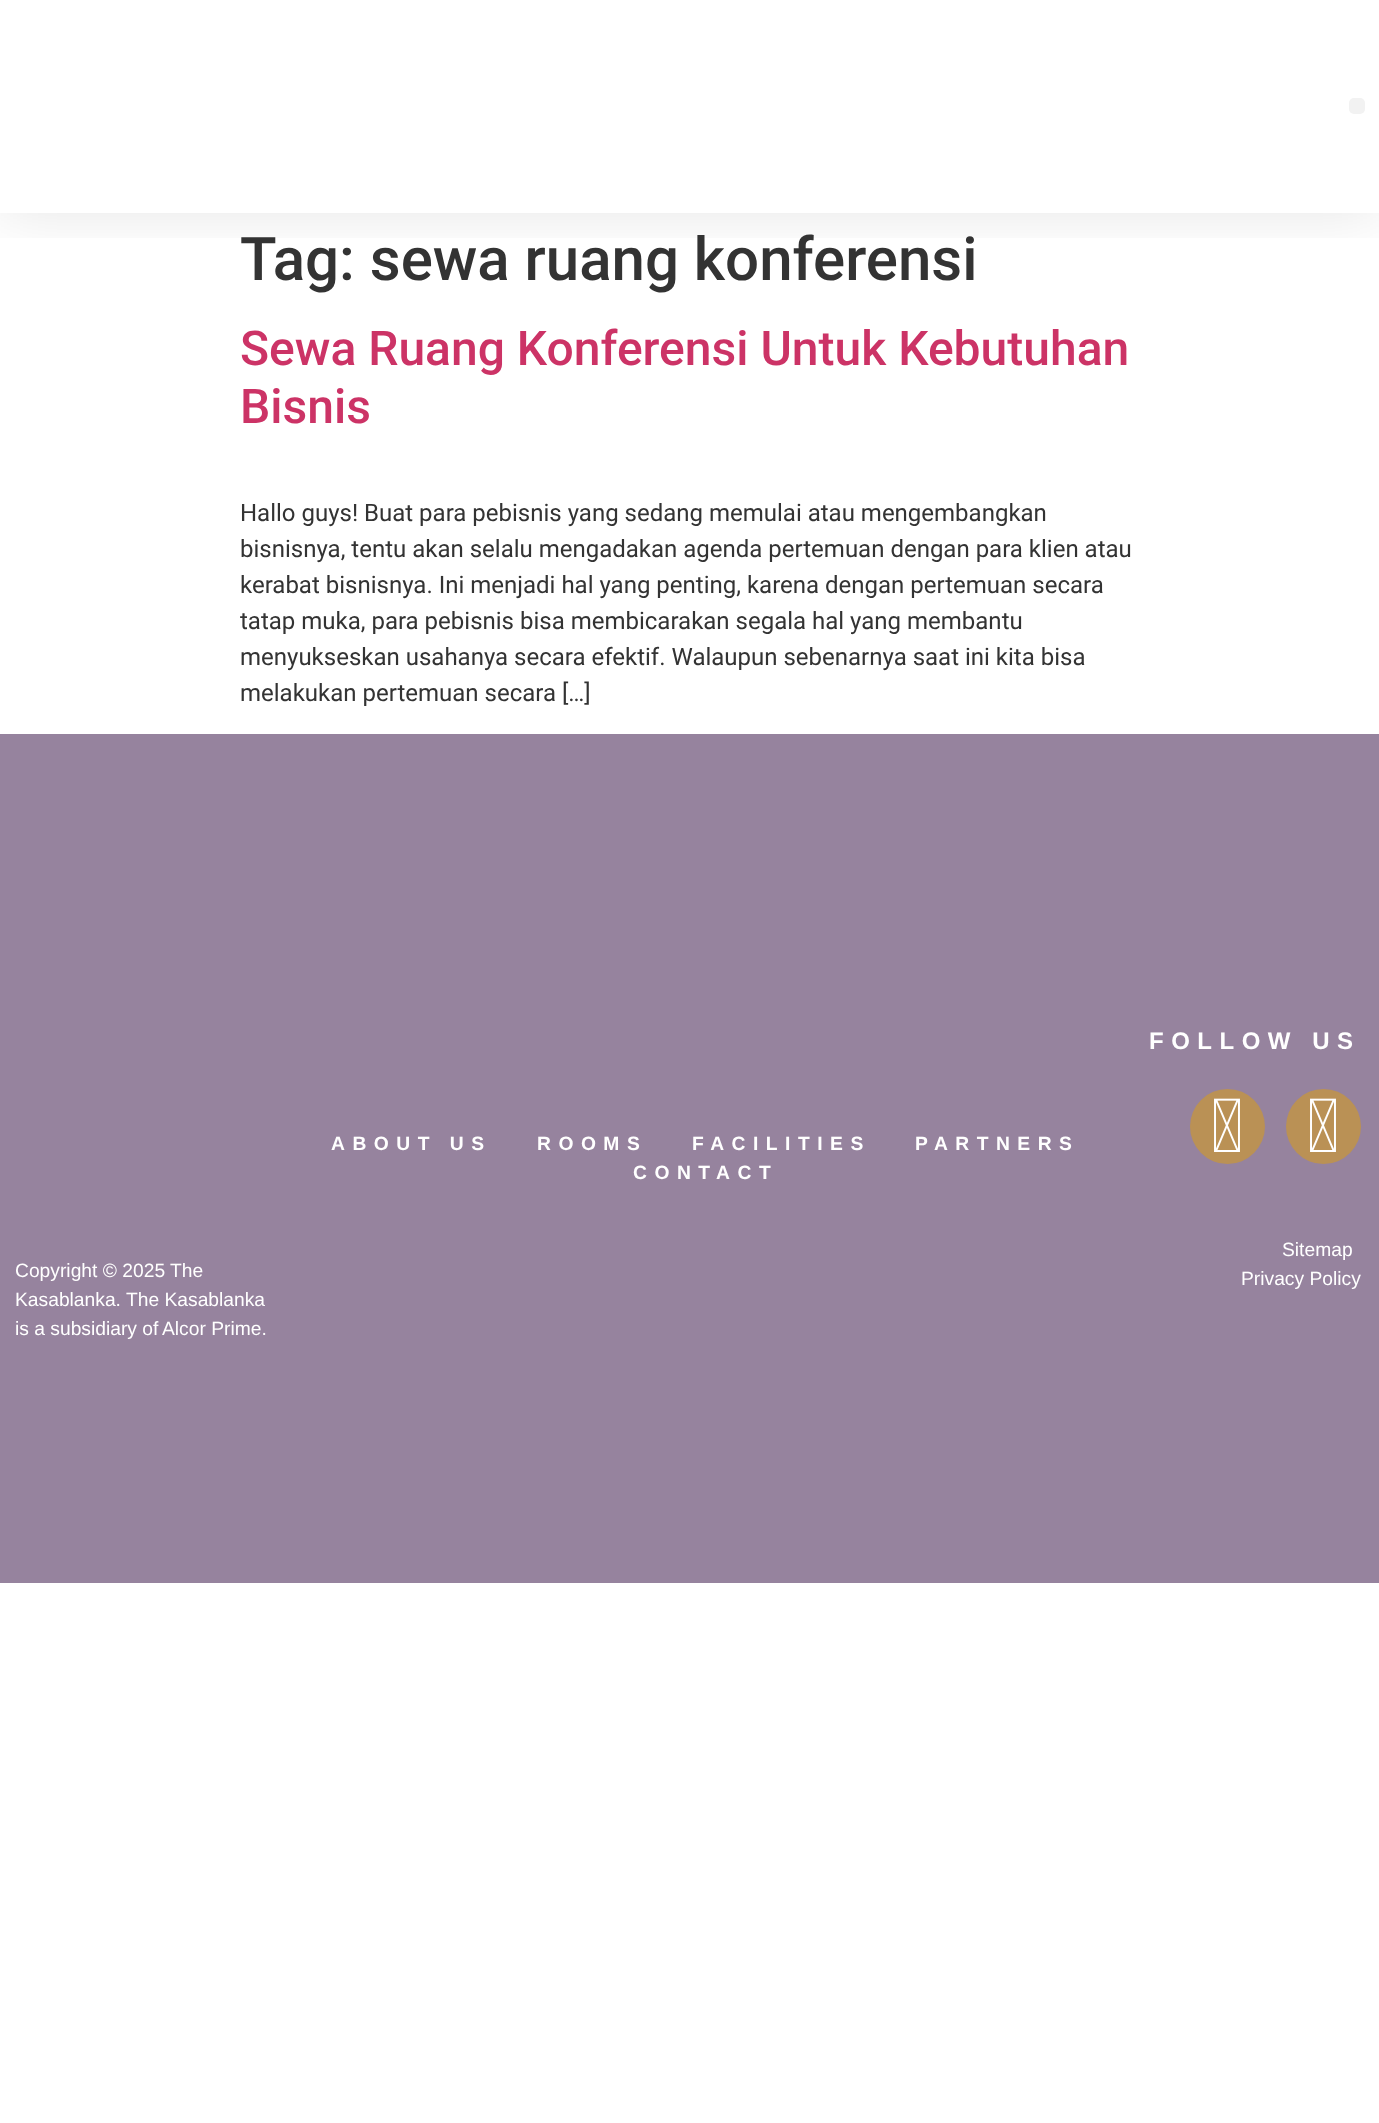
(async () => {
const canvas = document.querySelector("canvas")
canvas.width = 1379
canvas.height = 2123
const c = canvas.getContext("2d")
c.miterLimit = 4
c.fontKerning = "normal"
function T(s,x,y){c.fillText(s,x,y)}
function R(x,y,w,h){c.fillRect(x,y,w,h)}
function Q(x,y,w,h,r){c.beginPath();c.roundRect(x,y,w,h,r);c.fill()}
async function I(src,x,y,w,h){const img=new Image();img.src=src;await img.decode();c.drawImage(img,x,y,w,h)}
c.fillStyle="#fff"
R(0,0,1379,2123)
c.save()
c.beginPath()
c.rect(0,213,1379,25)
c.clip()
c.fillStyle="#0000001a"
c.filter="blur(30px)"
c.beginPath()
c.rect(0,0,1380,213)
c.fill()
c.filter="none"
c.restore()
c.fillStyle="#f2f2f2"
Q(1349,98,16,16,5)
c.font="500 60px Roboto"
c.fillStyle="#333"
T("Tag: sewa ruang konferensi",240,280)
c.font="500 48px Roboto"
c.fillStyle="#c36"
T("Sewa Ruang Konferensi Untuk Kebutuhan",240,365)
T("Bisnis",240,423)
c.font="24px Roboto"
c.fillStyle="#333"
T("Hallo guys! Buat para pebisnis yang sedang memulai atau mengembangkan",240,521)
T("bisnisnya, tentu akan selalu mengadakan agenda pertemuan dengan para klien atau",240,557)
T("kerabat bisnisnya. Ini menjadi hal yang penting, karena dengan pertemuan secara",240,593)
T("tatap muka, para pebisnis bisa membicarakan segala hal yang membantu",240,629)
T("menyukseskan usahanya secara efektif. Walaupun sebenarnya saat ini kita bisa",240,665)
T("melakukan pertemuan secara […]",240,701)
c.fillStyle="#96839e"
R(0,734,1379,849)
c.letterSpacing="7.5px"
c.font="bold 19.25px Liberation Sans"
c.fillStyle="#fff"
T("ABOUT US",331,1150)
T("ROOMS",537,1150)
T("FACILITIES",692,1150)
T("PARTNERS",915,1150)
T("CONTACT",633,1179)
c.font="bold 24px Liberation Sans"
T("FOLLOW US",1149,1049)
c.fillStyle="#ba9155"
c.beginPath()
c.arc(1227.5,1126.5,37.5,0,7)
c.fill()
await I("1.png",1214,1098,26,54)
c.beginPath()
c.arc(1323.5,1126.5,37.5,0,7)
c.fill()
await I("1.png",1310,1098,26,54)
c.letterSpacing="0px"
c.font="19.25px Liberation Sans"
c.fillStyle="#fff"
T("Sitemap",1282,1256)
T("Privacy Policy",1241,1285)
T("Copyright © 2025 The",15,1277)
T("Kasablanka. The Kasablanka",15,1306)
T("is a subsidiary of",15,1335)
T("Alcor Prime.",162,1335)
})()
